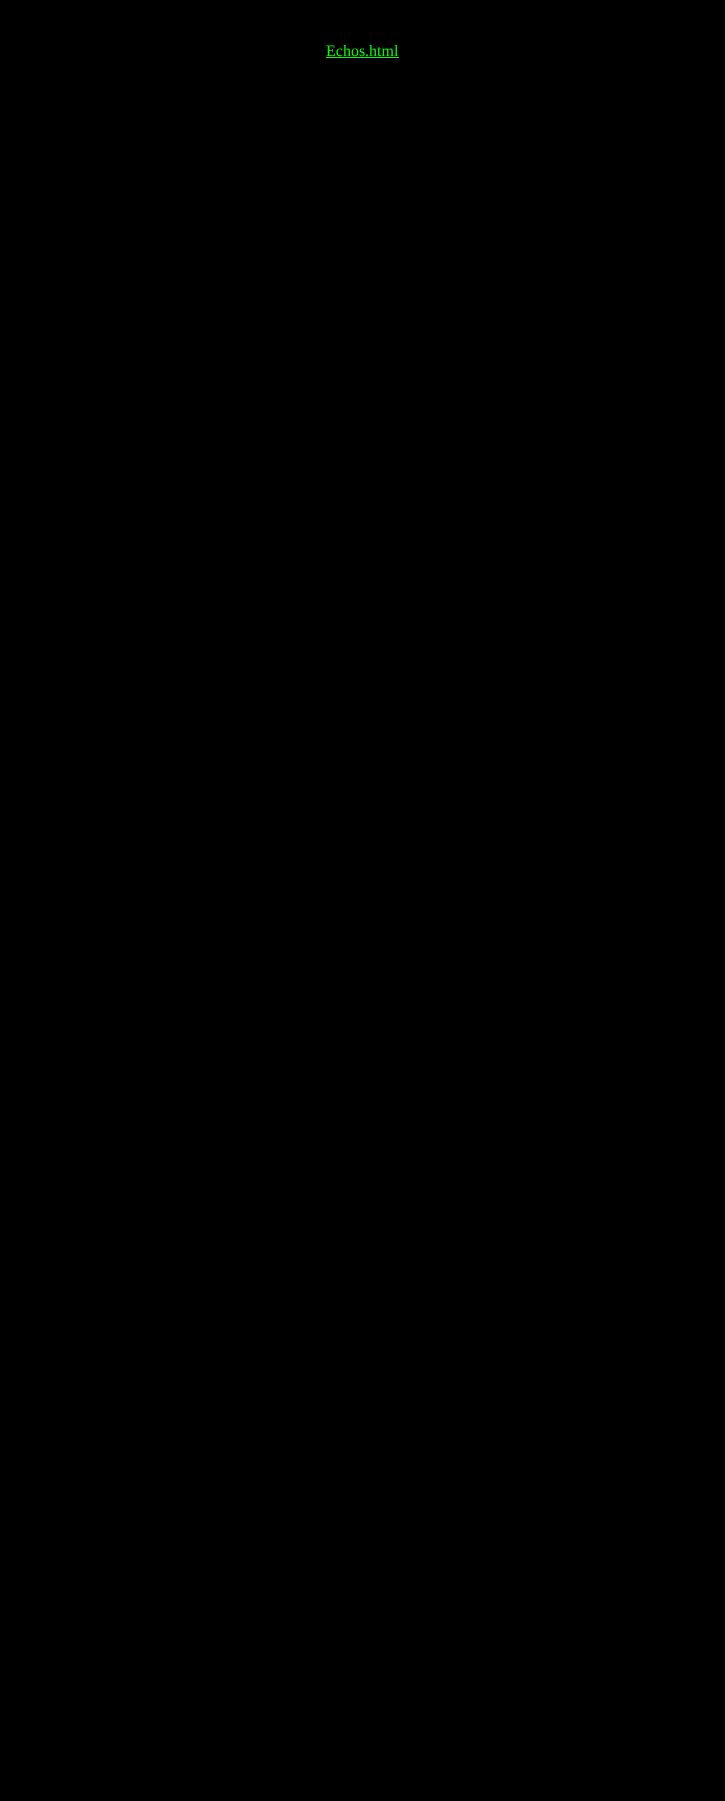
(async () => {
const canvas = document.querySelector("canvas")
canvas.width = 725
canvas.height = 1801
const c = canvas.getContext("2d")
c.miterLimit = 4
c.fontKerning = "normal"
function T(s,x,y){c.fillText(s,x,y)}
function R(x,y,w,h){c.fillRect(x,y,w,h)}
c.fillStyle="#000"
R(0,0,725,1801)
c.font="16px Liberation Serif"
c.fillStyle="#0f0"
T("Echos.html",326,56)
R(326,57,73,1)
})()
